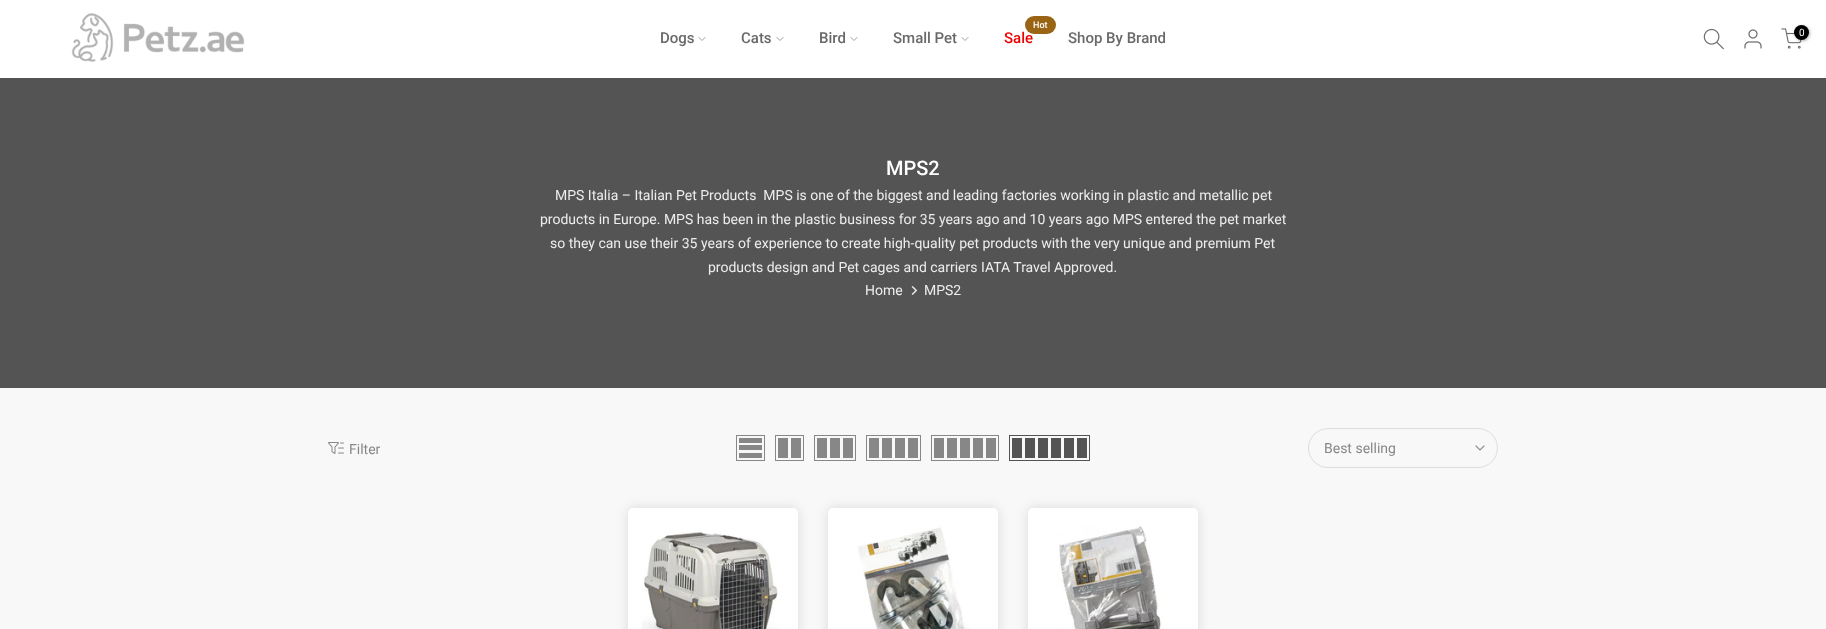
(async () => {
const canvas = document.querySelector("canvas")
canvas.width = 1826
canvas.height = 629
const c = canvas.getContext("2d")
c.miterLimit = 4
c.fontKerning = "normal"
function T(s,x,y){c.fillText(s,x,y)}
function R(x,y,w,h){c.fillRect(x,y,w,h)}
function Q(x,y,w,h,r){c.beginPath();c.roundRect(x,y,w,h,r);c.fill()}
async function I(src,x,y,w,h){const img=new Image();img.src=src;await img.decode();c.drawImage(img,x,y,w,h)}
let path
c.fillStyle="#f9f8f8"
R(0,0,1826,629)
c.fillStyle="#fff"
R(0,0,1826,78)
await I("1.png",71,13,174,49)
c.font="500 15px Roboto"
c.fillStyle="#69696b"
T("Dogs",660,43)
path = new Path2D("M705 37.5l-3 3l-3-3")
c.strokeStyle="#878789"
c.lineWidth=0.8
c.lineCap="square"
c.stroke(path)
T("Cats",741,43)
path = new Path2D("M783 37.5l-3 3l-3-3")
c.stroke(path)
T("Bird",819,43)
path = new Path2D("M857 37.5l-3 3l-3-3")
c.stroke(path)
T("Small Pet",893,43)
path = new Path2D("M968 37.5l-3 3l-3-3")
c.stroke(path)
c.fillStyle="#ec0101"
T("Sale",1004,43)
c.fillStyle="#996515"
Q(1025,16,31,18,9)
c.font="500 9px Roboto"
c.fillStyle="#fff"
T("Hot",1033,28)
c.font="500 15px Roboto"
c.fillStyle="#69696b"
T("Shop By Brand",1068,43)
await I("2.png",1703,28,21,22)
await I("3.png",1744,29,18,20)
await I("4.png",1781,28,21,21)
c.fillStyle="#0000004d"
c.filter="blur(1.5px)"
c.beginPath()
c.roundRect(1795,26,15,15,7.5)
c.fill()
c.filter="none"
c.fillStyle="#000"
c.beginPath()
c.arc(1801.5,32.5,7.5,0,7)
c.fill()
c.font="10px Roboto"
c.fillStyle="#fff"
T("0",1799,36)
c.fillStyle="#545454"
R(0,78,1826,310)
c.font="500 20px Roboto"
c.fillStyle="#fff"
T("MPS2",886,175)
c.font="14px Roboto"
c.fillStyle="#ededed"
T("MPS Italia – Italian Pet Products  MPS is one of the biggest and leading factories working in plastic and metallic pet",555,200)
T("products in Europe. MPS has been in the plastic business for 35 years ago and 10 years ago MPS entered the pet market",540,224)
T("so they can use their 35 years of experience to create high-quality pet products with the very unique and premium Pet",550,248)
T("products design and Pet cages and carriers IATA Travel Approved.",708,272)
T("Home",865,295)
await I("5.png",911,286,7,9)
T("MPS2",924,295)
await I("6.png",328,442,16,12)
c.fillStyle="#878787"
T("Filter",349,454)
c.strokeStyle="#878787"
c.lineWidth=1
c.strokeRect(736.5,435.5,28,25)
R(739,453,23,5)
R(739,445,23,5)
R(739,438,23,5)
c.strokeRect(775.5,435.5,28,25)
R(791,438,10,20)
R(778,438,10,20)
c.strokeRect(814.5,435.5,41,25)
R(843,438,10,20)
R(830,438,10,20)
R(817,438,10,20)
c.strokeRect(866.5,435.5,54,25)
R(908,438,10,20)
R(895,438,10,20)
R(882,438,10,20)
R(869,438,10,20)
c.strokeRect(931.5,435.5,67,25)
R(986,438,10,20)
R(973,438,10,20)
R(960,438,10,20)
R(947,438,10,20)
R(934,438,10,20)
c.strokeStyle="#545454"
c.strokeRect(1009.5,435.5,80,25)
c.fillStyle="#545454"
R(1077,438,10,20)
R(1064,438,10,20)
R(1051,438,10,20)
R(1038,438,10,20)
R(1025,438,10,20)
R(1012,438,10,20)
c.beginPath()
c.roundRect(1308.5,428.5,189,39,19.5)
c.strokeStyle="#ddd"
c.stroke()
c.fillStyle="#878787"
T("Best selling",1324,453)
path = new Path2D("M1484 446l-4 4l-4-4")
c.strokeStyle="#878787"
c.lineWidth=1.1
c.stroke(path)
c.fillStyle="#0000001f"
c.filter="blur(6px)"
c.beginPath()
c.roundRect(628,508,170,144,5)
c.fill()
c.filter="none"
await I("7.png",628,508,170,121)
c.filter="blur(6px)"
c.beginPath()
c.roundRect(828,508,170,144,5)
c.fill()
c.filter="none"
await I("8.png",828,508,170,121)
c.filter="blur(6px)"
c.beginPath()
c.roundRect(1028,508,170,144,5)
c.fill()
c.filter="none"
await I("9.png",1028,508,170,121)
})()
